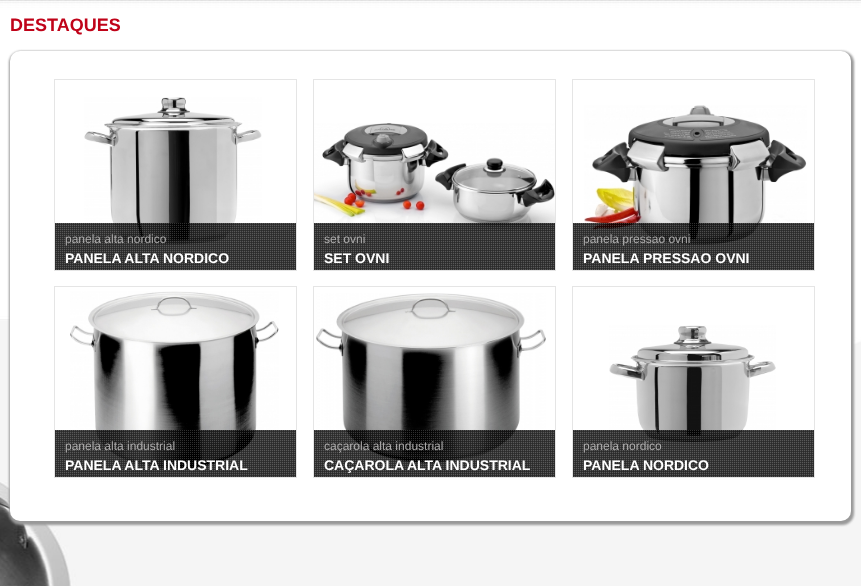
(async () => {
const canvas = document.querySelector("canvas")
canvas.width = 861
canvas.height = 586
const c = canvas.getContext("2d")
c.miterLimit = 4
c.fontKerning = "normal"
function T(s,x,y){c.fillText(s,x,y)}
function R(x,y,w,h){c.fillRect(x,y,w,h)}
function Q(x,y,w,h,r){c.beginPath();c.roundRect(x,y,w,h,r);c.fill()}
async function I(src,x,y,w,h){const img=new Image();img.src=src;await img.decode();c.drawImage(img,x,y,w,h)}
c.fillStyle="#fff"
R(0,0,861,586)
await I("1.png",0,0,861,586)
c.font="bold 18px Liberation Sans"
c.fillStyle="#c00319"
T("DESTAQUES",10,31)
c.fillStyle="#999"
c.filter="blur(1px)"
c.beginPath()
c.roundRect(9,51,845,474,12)
c.fill()
c.filter="none"
c.fillStyle="#fff"
Q(10,51,841,470,10)
c.strokeStyle="#e5e5e5"
c.strokeRect(54.5,79.5,242,191)
await I("2.png",84,97,178,148)
await I("3.png",55,223,241,47)
c.font="12px Liberation Sans"
c.fillStyle="#adacac"
T("panela alta nordico",65,243)
c.font="bold 14px Liberation Sans"
c.fillStyle="#fff"
T("PANELA ALTA NORDICO",65,263)
c.strokeRect(313.5,79.5,242,191)
await I("4.png",314,123,241,108)
await I("5.png",314,223,241,47)
c.font="12px Liberation Sans"
c.fillStyle="#adacac"
T("set ovni",324,243)
c.font="bold 14px Liberation Sans"
c.fillStyle="#fff"
T("SET OVNI",324,263)
c.strokeRect(572.5,79.5,242,191)
await I("6.png",584,105,223,141)
await I("7.png",573,223,241,47)
c.font="12px Liberation Sans"
c.fillStyle="#adacac"
T("panela pressao ovni",583,243)
c.font="bold 14px Liberation Sans"
c.fillStyle="#fff"
T("PANELA PRESSAO OVNI",583,263)
c.strokeRect(54.5,286.5,242,191)
await I("8.png",70,291,209,179)
await I("9.png",55,430,241,47)
c.font="12px Liberation Sans"
c.fillStyle="#adacac"
T("panela alta industrial",65,450)
c.font="bold 14px Liberation Sans"
c.fillStyle="#fff"
T("PANELA ALTA INDUSTRIAL",65,470)
c.strokeRect(313.5,286.5,242,191)
await I("10.png",316,293,230,170)
await I("11.png",314,430,241,47)
c.font="12px Liberation Sans"
c.fillStyle="#adacac"
T("caçarola alta industrial",324,450)
c.font="bold 14px Liberation Sans"
c.fillStyle="#fff"
T("CAÇAROLA ALTA INDUSTRIAL",324,470)
c.strokeRect(572.5,286.5,242,191)
await I("12.png",609,325,167,118)
await I("13.png",573,430,241,47)
c.font="12px Liberation Sans"
c.fillStyle="#adacac"
T("panela nordico",583,450)
c.font="bold 14px Liberation Sans"
c.fillStyle="#fff"
T("PANELA NORDICO",583,470)
})()
